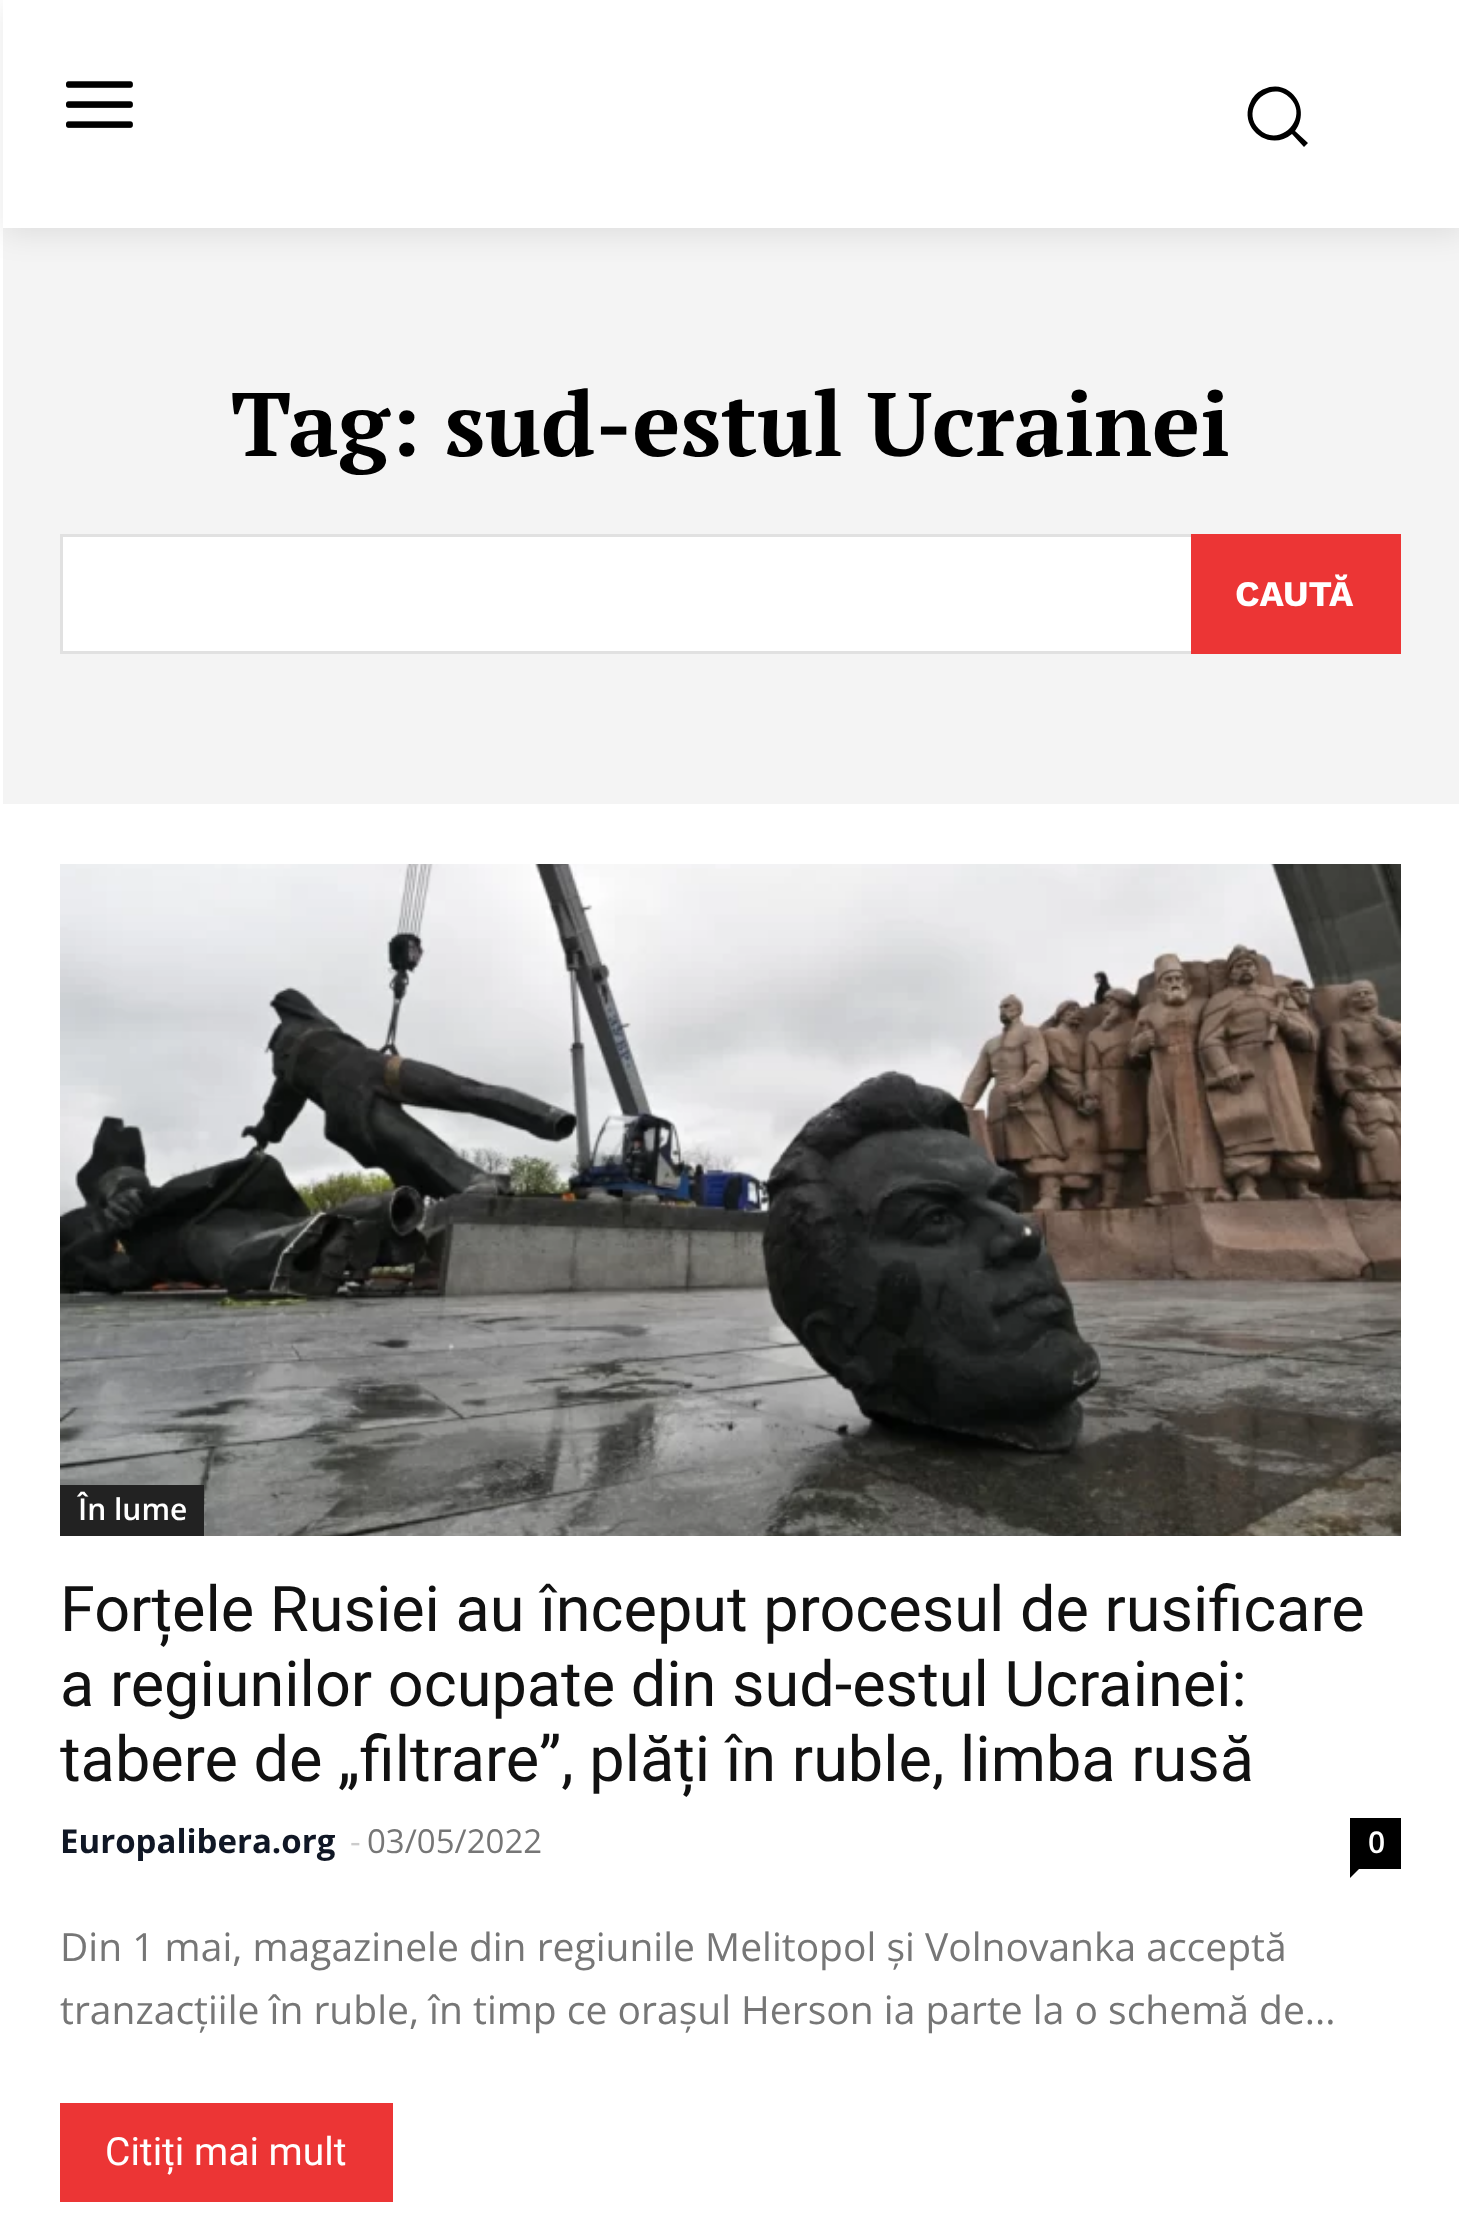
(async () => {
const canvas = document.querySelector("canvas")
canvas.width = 1459
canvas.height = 2238
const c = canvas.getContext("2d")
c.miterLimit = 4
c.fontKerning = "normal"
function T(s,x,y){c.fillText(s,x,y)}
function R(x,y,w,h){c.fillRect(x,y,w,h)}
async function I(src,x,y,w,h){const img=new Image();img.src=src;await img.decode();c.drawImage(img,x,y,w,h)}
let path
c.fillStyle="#fff"
R(0,0,1459,2238)
await I("1.png",66,81,67,47)
c.fillStyle="#000"
path = new Path2D("M1308 143l-13-12c10-13 7-31-6-40c-7-5-16-6-25-2c-5 2-10 6-13 12c-14 26 18 52 41 33l12 13zm-49-14c-20-20 11-51 31-31c20 20-11 51-31 31z")
c.fill(path)
c.fillStyle="#f4f4f4"
R(3,228,1456,576)
c.save()
path = new Path2D("M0 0h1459v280h-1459zm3 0h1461v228h-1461z")
c.clip(path,"evenodd")
c.fillStyle="#00000017"
c.filter="blur(15px)"
c.beginPath()
c.rect(3,6,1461,228)
c.fill()
c.filter="none"
c.restore()
c.font="bold 90px PT Serif"
c.fillStyle="#000"
T("Tag: sud-estul Ucrainei",231,456)
c.fillStyle="#fff"
R(63,537,1128,114)
c.strokeStyle="#e1e1e1"
c.lineWidth=3
c.strokeRect(61.5,535.5,1338,117)
c.fillStyle="#ec3535"
R(1191,534,210,120)
c.font="bold 36px Work Sans"
c.fillStyle="#fff"
T("CAUTĂ",1235,606)
await I("2.png",60,864,1341,672)
c.fillStyle="#222"
R(60,1485,144,51)
c.font="600 30px Open Sans"
c.fillStyle="#fff"
T("În lume",78,1520)
c.font="63px Roboto"
c.fillStyle="#111"
T("Forțele Rusiei au început procesul de rusificare",60,1631)
T("a regiunilor ocupate din sud-estul Ucrainei:",60,1706)
T("tabere de „filtrare”, plăți în ruble, limba rusă",60,1781)
c.font="bold 33px Open Sans"
c.fillStyle="#101725"
T("Europalibera.org",60,1853)
c.font="33px Open Sans"
c.fillStyle="#ccc"
T("-",350,1853)
c.fillStyle="#767676"
T("03/05/2022",367,1853)
c.fillStyle="#000"
R(1350,1818,51,51)
c.font="600 30px Open Sans"
c.fillStyle="#fff"
T("0",1368,1853)
c.fillStyle="#000"
path = new Path2D("M1350 1869h9l-9 9z")
c.fill(path)
c.font="39px Open Sans"
c.fillStyle="#767676"
T("Din 1 mai, magazinele din regiunile Melitopol și Volnovanka acceptă",60,1961)
T("tranzacțiile în ruble, în timp ce orașul Herson ia parte la o schemă de...",60,2024)
c.fillStyle="#ec3535"
R(60,2103,333,99)
c.font="39px Roboto"
c.fillStyle="#fff"
T("Citiți mai mult",105,2165)
})()
